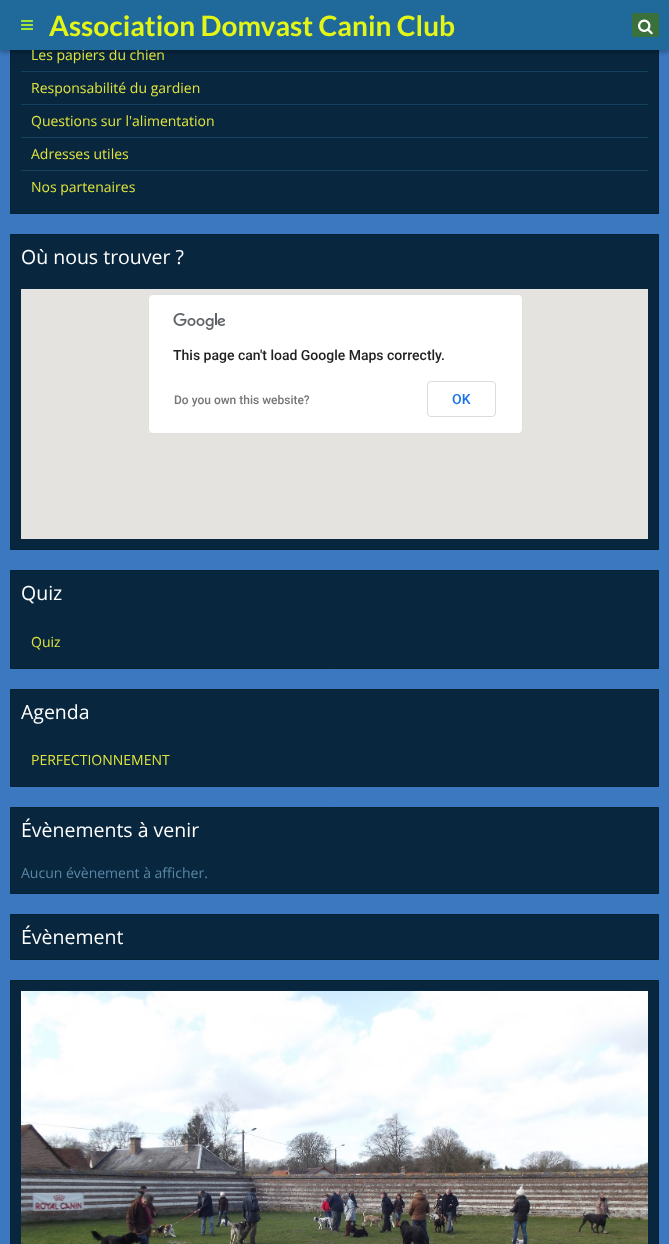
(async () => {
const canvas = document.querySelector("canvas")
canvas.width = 669
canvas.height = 1244
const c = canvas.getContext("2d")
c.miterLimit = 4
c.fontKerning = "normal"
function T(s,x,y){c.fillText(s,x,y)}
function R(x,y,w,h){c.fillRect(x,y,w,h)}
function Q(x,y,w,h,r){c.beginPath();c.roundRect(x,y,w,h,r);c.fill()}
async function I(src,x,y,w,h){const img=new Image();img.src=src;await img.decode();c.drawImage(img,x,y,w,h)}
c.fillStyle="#3b78bf"
R(0,0,669,1244)
c.fillStyle="#08263e"
R(11,50,647,163)
c.strokeStyle="#022231"
c.strokeRect(10.5,-.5,648,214)
c.fillStyle="#0000004d"
c.filter="blur(2.5px)"
c.beginPath()
c.rect(0,2,669,50)
c.fill()
c.filter="none"
c.font="14px Open Sans"
c.fillStyle="#e1e43e"
T("Les papiers du chien",31,60)
c.fillStyle="#1f699b"
R(0,0,669,50)
await I("1.png",21,20,12,10)
c.font="bold 28px Lato"
c.fillStyle="#e4f616"
T("Association Domvast Canin Club",49,36)
c.fillStyle="#3a703c"
Q(632,13,27,24,2)
await I("2.png",638,19,15,16)
c.fillStyle="#14415e"
R(21,71,627,1)
R(21,104,627,1)
c.font="14px Open Sans"
c.fillStyle="#e1e43e"
T("Responsabilité du gardien",31,93)
c.fillStyle="#14415e"
R(21,137,627,1)
c.fillStyle="#e1e43e"
T("Questions sur l'alimentation",31,126)
c.fillStyle="#14415e"
R(21,170,627,1)
c.fillStyle="#e1e43e"
T("Adresses utiles",31,159)
T("Nos partenaires",31,192)
c.fillStyle="#08263e"
c.beginPath()
c.rect(10.5,234.5,648,315)
c.fill()
c.stroke()
c.font="19.5px Open Sans"
c.fillStyle="#fff"
T("Où nous trouver ?",21,264)
c.fillStyle="#e5e3df"
R(21,289,627,250)
c.fillStyle="#fff"
Q(148,294,375,140,5)
c.beginPath()
c.roundRect(148.5,294.5,374,139,4.5)
c.strokeStyle="#0000001f"
c.stroke()
await I("3.png",173,313,52,17)
c.font="500 14px Roboto"
c.fillStyle="#212121"
T("This page can't load Google Maps correctly.",173,360)
c.font="500 12px Roboto"
c.fillStyle="#757575"
T("Do you own this website?",174,404)
c.beginPath()
c.roundRect(427.5,381.5,68,35,3.5)
c.strokeStyle="#dadce0"
c.stroke()
c.font="500 14px Roboto"
c.fillStyle="#1a73e8"
T("OK",452,404)
c.fillStyle="#08263e"
c.beginPath()
c.rect(10.5,570.5,648,98)
c.fill()
c.strokeStyle="#022231"
c.stroke()
c.font="19.5px Open Sans"
c.fillStyle="#fff"
T("Quiz",21,600)
c.font="14px Open Sans"
c.fillStyle="#e1e43e"
T("Quiz",31,647)
c.fillStyle="#08263e"
c.beginPath()
c.rect(10.5,689.5,648,97)
c.fill()
c.stroke()
c.font="19.5px Open Sans"
c.fillStyle="#fff"
T("Agenda",21,719)
c.font="14px Open Sans"
c.fillStyle="#e1e43e"
T("PERFECTIONNEMENT",31,765)
c.fillStyle="#08263e"
c.beginPath()
c.rect(10.5,807.5,648,86)
c.fill()
c.stroke()
c.font="19.5px Open Sans"
c.fillStyle="#fff"
T("Évènements à venir",21,837)
c.font="14px Open Sans"
c.fillStyle="#5b87a5"
T("Aucun évènement à afficher.",21,878)
c.fillStyle="#08263e"
c.beginPath()
c.rect(10.5,914.5,648,45)
c.fill()
c.stroke()
c.font="19.5px Open Sans"
c.fillStyle="#fff"
T("Évènement",21,944)
c.fillStyle="#08263e"
c.beginPath()
c.rect(10.5,980.5,648,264)
c.fill()
c.stroke()
await I("4.png",21,991,627,253)
})()
